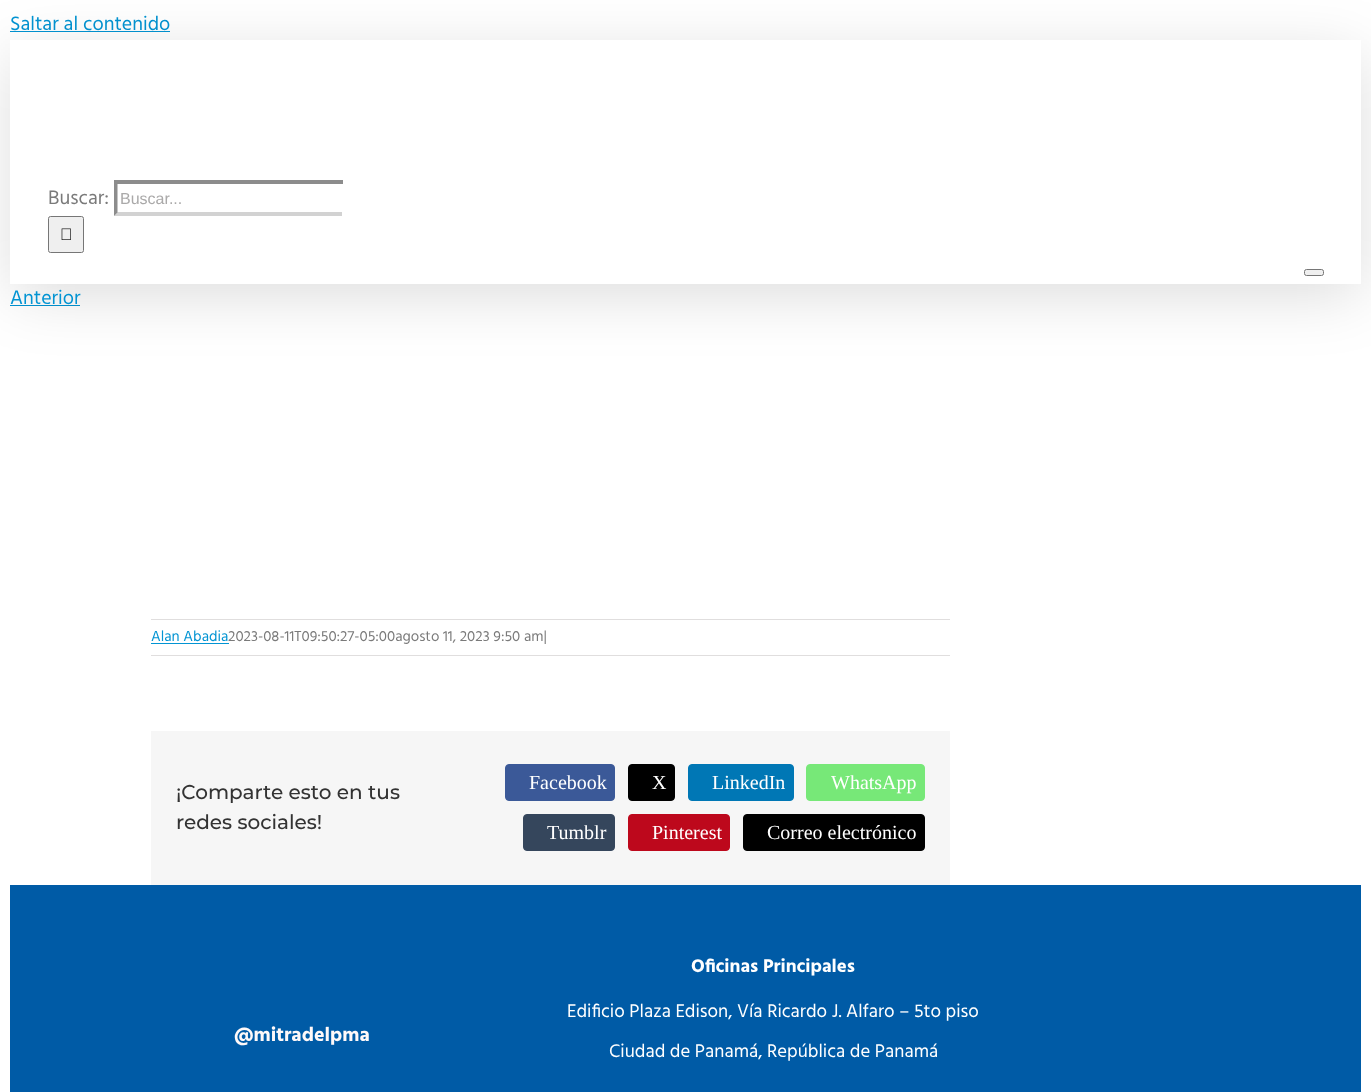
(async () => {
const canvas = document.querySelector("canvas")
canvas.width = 1371
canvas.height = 1092
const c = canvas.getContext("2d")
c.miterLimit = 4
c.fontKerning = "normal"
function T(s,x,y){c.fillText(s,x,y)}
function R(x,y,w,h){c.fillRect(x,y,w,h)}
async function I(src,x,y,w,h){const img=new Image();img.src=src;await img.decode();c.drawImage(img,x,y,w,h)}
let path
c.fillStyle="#fff"
R(0,0,1371,1092)
c.font="20px Hind"
c.fillStyle="#0294d3"
T("Saltar al contenido",10,30)
R(10,31,160,1)
R(10,305,70,1)
c.save()
path = new Path2D("M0 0h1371v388h-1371zm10 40h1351v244h-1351z")
c.clip(path,"evenodd")
c.fillStyle="#00000024"
c.filter="blur(31px)"
c.beginPath()
c.rect(13,55,1346,239)
c.fill()
c.filter="none"
c.restore()
c.fillStyle="#fff"
R(10,283,1351,1)
c.fillStyle="#7a7a7a"
T("Buscar:",48,204)
c.fillStyle="#8c8c8c"
R(114,180,229,4)
c.fillStyle="#d2d2d2"
path = new Path2D("M342 216h-228l4-4h224z")
c.fill(path)
c.fillStyle="#8c8c8c"
path = new Path2D("M114 216v-36l3.5 4v28.5z")
c.fill(path)
c.font="16px Liberation Sans"
c.fillStyle="#aaa9a9"
T("Buscar...",120,204)
c.fillStyle="#efefef"
c.beginPath()
c.roundRect(48.5,216.5,35,36,2)
c.fill()
c.strokeStyle="#767676"
c.stroke()
await I("1.png",61,228,10,12)
c.beginPath()
c.roundRect(1304.5,269.5,19,6,2)
c.fill()
c.stroke()
c.font="20px Hind"
c.fillStyle="#0294d3"
T("Anterior",10,304)
c.fillStyle="#e0dede"
R(151,619,799,1)
R(151,655,799,1)
c.font="15px Hind"
c.fillStyle="#0294d3"
T("Alan Abadia",151,641)
R(151,643,78,1)
c.fillStyle="#7a7a7a"
T("2023-08-11T09:50:27-05:00agosto 11, 2023 9:50 am|",228,641)
c.fillStyle="#f6f6f6"
R(151,731,799,154)
c.font="500 20px Montserrat"
c.fillStyle="#333"
T("¡Comparte esto en tus",176,799)
T("redes sociales!",176,829)
c.fillStyle="#3b5998"
c.beginPath()
c.roundRect(505.5,764.5,109,36,3.5)
c.fill()
c.strokeStyle="#3b5998"
c.stroke()
c.font="20px Liberation Serif"
c.fillStyle="#fff"
T("Facebook",529,789)
c.fillStyle="#000"
c.beginPath()
c.roundRect(628.5,764.5,46,36,3.5)
c.fill()
c.strokeStyle="#000"
c.stroke()
c.fillStyle="#fff"
T("X",652,789)
c.fillStyle="#0077b5"
c.beginPath()
c.roundRect(688.5,764.5,105,36,3.5)
c.fill()
c.strokeStyle="#0077b5"
c.stroke()
c.fillStyle="#fff"
T("LinkedIn",712,789)
c.fillStyle="#77e878"
c.beginPath()
c.roundRect(806.5,764.5,118,36,3.5)
c.fill()
c.strokeStyle="#77e878"
c.stroke()
c.fillStyle="#fff"
T("WhatsApp",831,789)
c.fillStyle="#35465c"
c.beginPath()
c.roundRect(523.5,814.5,91,36,3.5)
c.fill()
c.strokeStyle="#35465c"
c.stroke()
c.fillStyle="#fff"
T("Tumblr",547,839)
c.fillStyle="#bd081c"
c.beginPath()
c.roundRect(628.5,814.5,101,36,3.5)
c.fill()
c.strokeStyle="#bd081c"
c.stroke()
c.fillStyle="#fff"
T("Pinterest",652,839)
c.fillStyle="#000"
c.beginPath()
c.roundRect(743.5,814.5,181,36,3.5)
c.fill()
c.strokeStyle="#000"
c.stroke()
c.fillStyle="#fff"
T("Correo electrónico",767,839)
c.fillStyle="#005ba6"
R(10,885,1351,207)
c.font="bold 20px Hind"
c.fillStyle="#fff9f9"
T("@mitradelpma",234,1041)
c.font="bold 18.75px Hind"
c.fillStyle="#fff"
T("Oficinas Principales",691,972)
c.font="18.75px Hind"
T("Edificio Plaza Edison, Vía Ricardo J. Alfaro – 5to piso",567,1017)
T("Ciudad de Panamá, República de Panamá",609,1057)
})()
